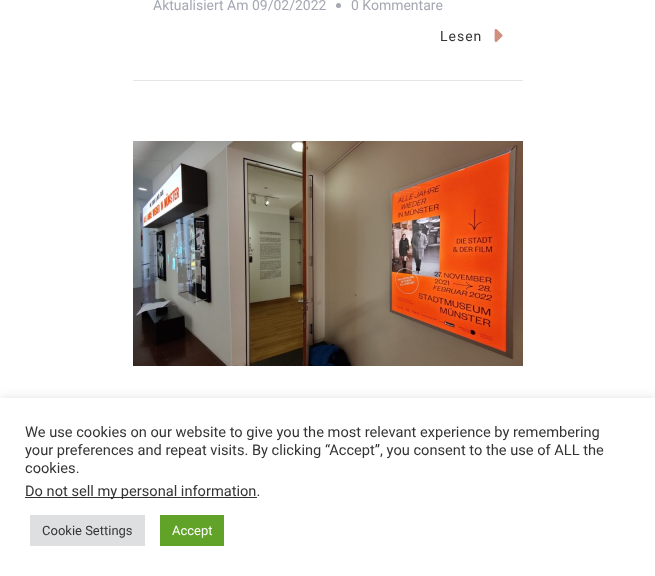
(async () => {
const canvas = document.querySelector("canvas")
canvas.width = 655
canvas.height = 576
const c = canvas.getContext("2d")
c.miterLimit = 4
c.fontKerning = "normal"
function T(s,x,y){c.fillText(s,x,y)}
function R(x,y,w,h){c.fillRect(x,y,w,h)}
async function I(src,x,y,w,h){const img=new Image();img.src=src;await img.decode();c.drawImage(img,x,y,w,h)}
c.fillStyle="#fff"
R(0,0,655,576)
c.fillStyle="#e6e6e6"
R(133,80,390,1)
c.font="14px Roboto"
c.fillStyle="#a5a8b2"
T("Aktualisiert Am 09/02/2022",153,10)
c.beginPath()
c.arc(338.5,5.5,2.5,0,7)
c.fill()
T("0 Kommentare",351,10)
c.letterSpacing="1px"
c.fillStyle="#343434"
T("Lesen",440,41)
await I("1.png",494,29,9,13)
await I("2.png",133,141,390,225)
c.fillStyle="#acabab4d"
c.filter="blur(5px)"
c.beginPath()
c.rect(0,397,655,178)
c.fill()
c.filter="none"
c.fillStyle="#fff"
R(0,398,655,178)
c.letterSpacing="0px"
c.font="14.65px Roboto"
c.fillStyle="#343434"
T("We use cookies on our website to give you the most relevant experience by remembering",25,437)
T("your preferences and repeat visits. By clicking “Accept”, you consent to the use of ALL the",25,455)
T("cookies.",25,473)
c.fillStyle="#333"
R(25,497,232,1)
c.fillStyle="#343434"
T("Do not sell my personal information.",25,496)
c.fillStyle="#dedfe0"
R(30,515,115,31)
c.font="13px Roboto"
c.fillStyle="#343434"
T("Cookie Settings",42,535)
c.fillStyle="#61a229"
R(160,515,64,31)
c.fillStyle="#fff"
T("Accept",172,535)
})()
